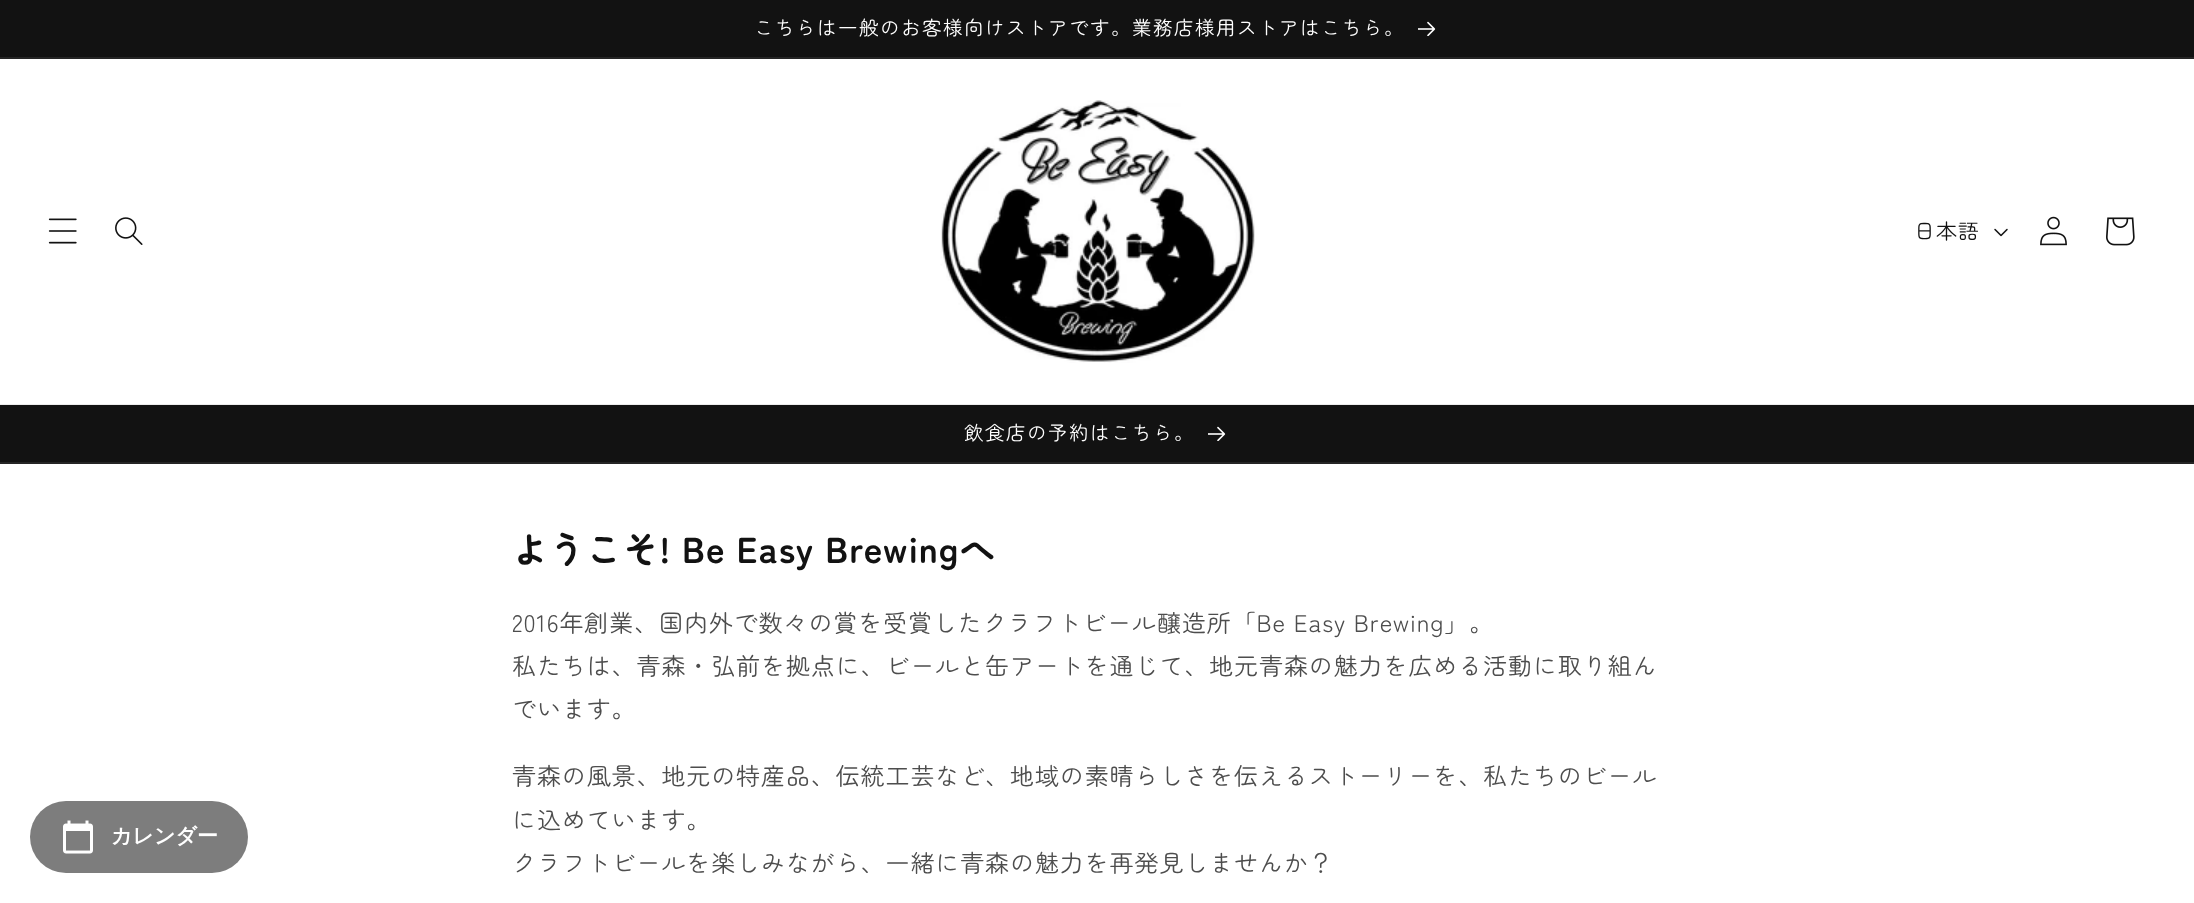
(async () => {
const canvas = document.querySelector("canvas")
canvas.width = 2194
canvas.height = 903
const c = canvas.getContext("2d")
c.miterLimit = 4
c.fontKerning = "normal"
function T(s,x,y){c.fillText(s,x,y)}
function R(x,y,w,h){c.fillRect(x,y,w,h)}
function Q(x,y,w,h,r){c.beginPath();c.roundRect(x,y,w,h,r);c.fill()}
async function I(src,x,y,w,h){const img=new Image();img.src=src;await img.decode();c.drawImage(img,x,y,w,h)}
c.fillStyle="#fff"
R(0,0,2194,903)
c.fillStyle="#ececec"
R(0,404,2194,1)
c.fillStyle="#121212"
R(0,0,2194,57)
c.fillStyle="#252525"
R(0,57,2194,2)
c.letterSpacing="1.5px"
c.font="19.5px Zen Maru Gothic"
c.fillStyle="#fff"
T("こちらは一般のお客様向けストアです。業務店様用ストアはこちら。",754,35)
await I("1.png",1418,21,18,15)
await I("2.png",48,218,29,26)
await I("3.png",115,217,28,28)
await I("4.png",940,100,315,263)
c.letterSpacing="0.9px"
c.font="21px Zen Maru Gothic"
c.fillStyle="#121212"
T("日本語",1914,239)
await I("5.png",1994,228,14,9)
await I("6.png",2040,216,27,30)
await I("7.png",2106,217,29,29)
R(0,405,2194,57)
c.fillStyle="#252525"
R(0,462,2194,2)
c.letterSpacing="1.5px"
c.font="19.5px Zen Maru Gothic"
c.fillStyle="#fff"
T("飲食店の予約はこちら。",964,440)
await I("1.png",1208,426,18,15)
c.fillStyle="#7d7d7d"
Q(30,801,218,72,36)
await I("8.png",63,820,30,34)
c.letterSpacing="0px"
c.font="bold 21px WenQuanYi Zen Hei"
c.fillStyle="#fff"
T("カレンダー",111,843)
c.letterSpacing="0.9px"
c.font="bold 36px Zen Maru Gothic"
c.fillStyle="#121212"
T("ようこそ! Be Easy Brewingへ",512,563)
c.font="24px Zen Maru Gothic"
c.fillStyle="#4d4d4d"
T("2016年創業、国内外で数々の賞を受賞したクラフトビール醸造所「Be Easy Brewing」。",512,632)
T("私たちは、青森・弘前を拠点に、ビールと缶アートを通じて、地元青森の魅力を広める活動に取り組ん",512,675)
T("でいます。",512,718)
T("青森の風景、地元の特産品、伝統工芸など、地域の素晴らしさを伝えるストーリーを、私たちのビール",512,785)
T("に込めています。",512,829)
T("クラフトビールを楽しみながら、一緒に青森の魅力を再発見しませんか？",512,872)
})()
